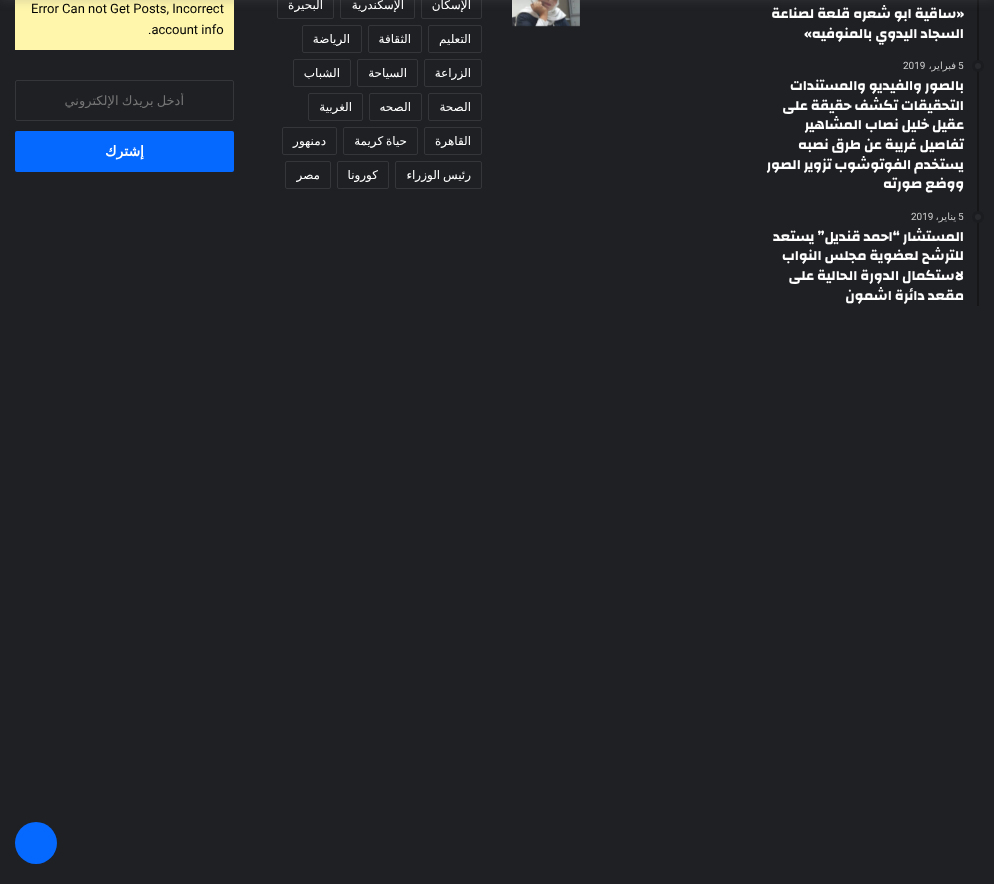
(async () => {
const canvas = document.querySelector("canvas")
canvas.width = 994
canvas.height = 884
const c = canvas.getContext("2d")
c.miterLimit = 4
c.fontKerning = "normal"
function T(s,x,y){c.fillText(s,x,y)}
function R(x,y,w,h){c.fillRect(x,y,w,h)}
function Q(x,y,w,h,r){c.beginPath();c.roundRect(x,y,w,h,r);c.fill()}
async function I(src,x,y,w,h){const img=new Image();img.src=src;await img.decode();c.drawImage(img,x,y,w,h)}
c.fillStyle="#1f2024"
R(0,0,994,884)
c.fillStyle="#161619"
R(977,0,2,306)
await I("1.png",512,0,68,27)
c.beginPath()
c.roundRect(421.5,-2.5,60,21,1.5)
c.strokeStyle="#35363a"
c.stroke()
c.beginPath()
c.roundRect(340.5,-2.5,74,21,1.5)
c.stroke()
c.beginPath()
c.roundRect(277.5,-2.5,56,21,1.5)
c.stroke()
c.fillStyle="#fff6ac"
R(15,0,219,50)
c.fillStyle="#63636333"
c.filter="blur(4px)"
c.beginPath()
c.rect(0,-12,994,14)
c.fill()
c.filter="none"
c.direction="rtl"
c.font="bold 14px Changa"
c.fillStyle="#fff"
T("«ساقية ابو شعره قلعة لصناعة",964,18)
T("السجاد اليدوي بالمنوفيه»",964,38)
c.fillStyle="#27292d"
c.beginPath()
c.arc(978,66,4.5,0,7)
c.fill()
c.strokeStyle="#1b1c1f"
c.lineWidth=3
c.stroke()
c.direction="ltr"
c.font="10px Roboto"
c.fillStyle="#ccc"
T("5",958,69)
c.direction="rtl"
c.font="10px DejaVu Sans"
T("فبراير،",956,69)
c.direction="ltr"
c.font="10px Roboto"
T("2019",903,69)
c.direction="rtl"
c.font="bold 14px Changa"
c.fillStyle="#fff"
T("بالصور والفيديو والمستندات",964,90)
T("التحقيقات تكشف حقيقة على",964,110)
T("عقيل خليل نصاب المشاهير",964,129)
T("تفاصيل غريبة عن طرق نصبه",964,149)
T("يستخدم الفوتوشوب تزوير الصور",964,169)
T("ووضع صورته",964,188)
c.fillStyle="#27292d"
c.beginPath()
c.arc(978,217,4.5,0,7)
c.fill()
c.stroke()
c.direction="ltr"
c.font="10px Roboto"
c.fillStyle="#ccc"
T("5",958,220)
c.direction="rtl"
c.font="10px DejaVu Sans"
T("يناير،",956,220)
c.direction="ltr"
c.font="10px Roboto"
T("2019",911,220)
c.direction="rtl"
c.font="bold 14px Changa"
c.fillStyle="#fff"
T("المستشار “احمد قنديل” يستعد",964,241)
T("للترشح لعضوية مجلس النواب",964,260)
T("لاستكمال الدورة الحالية على",964,280)
T("مقعد دائرة اشمون",964,300)
c.font="12px DejaVu Sans"
T("الإسكان",471,9)
T("الإسكندرية",404,9)
T("البحيرة",323,9)
c.beginPath()
c.roundRect(428.5,25.5,53,27,1.5)
c.strokeStyle="#35363a"
c.lineWidth=1
c.stroke()
T("التعليم",471,43)
c.beginPath()
c.roundRect(368.5,25.5,53,27,1.5)
c.stroke()
T("الثقافة",411,43)
c.beginPath()
c.roundRect(302.5,25.5,59,27,1.5)
c.stroke()
T("الرياضة",350,43)
c.beginPath()
c.roundRect(424.5,59.5,57,27,1.5)
c.stroke()
T("الزراعة",471,77)
c.beginPath()
c.roundRect(357.5,59.5,60,27,1.5)
c.stroke()
T("السياحة",407,77)
c.beginPath()
c.roundRect(293.5,59.5,57,27,1.5)
c.stroke()
T("الشباب",340,77)
c.beginPath()
c.roundRect(428.5,93.5,53,27,1.5)
c.stroke()
T("الصحة",471,111)
c.beginPath()
c.roundRect(369.5,93.5,52,27,1.5)
c.stroke()
T("الصحه",411,111)
c.beginPath()
c.roundRect(308.5,93.5,54,27,1.5)
c.stroke()
T("الغربية",352,111)
c.beginPath()
c.roundRect(424.5,127.5,57,27,1.5)
c.stroke()
T("القاهرة",471,145)
c.beginPath()
c.roundRect(343.5,127.5,74,27,1.5)
c.stroke()
c.wordSpacing="-1px"
T("حياة كريمة",407,145)
c.beginPath()
c.roundRect(282.5,127.5,54,27,1.5)
c.stroke()
c.wordSpacing="0px"
T("دمنهور",326,145)
c.beginPath()
c.roundRect(395.5,161.5,86,27,1.5)
c.stroke()
c.wordSpacing="-1px"
T("رئيس الوزراء",471,179)
c.beginPath()
c.roundRect(337.5,161.5,51,27,1.5)
c.stroke()
c.wordSpacing="0px"
T("كورونا",378,179)
c.beginPath()
c.roundRect(285.5,161.5,45,27,1.5)
c.stroke()
T("مصر",320,179)
c.direction="ltr"
c.font="13px Roboto"
c.fillStyle="#000"
T("Error Can not Get Posts, Incorrect",31,13)
T(".account info",148,34)
c.beginPath()
c.roundRect(15.5,80.5,218,40,1.5)
c.stroke()
c.save()
c.beginPath()
c.rect(46,93,157,15)
c.clip()
c.wordSpacing="-1px"
c.direction="rtl"
c.font="13px DejaVu Sans"
c.fillStyle="#757575"
T("أدخل بريدك الإلكتروني",184,105)
c.restore()
c.fillStyle="#0669ff"
Q(15,131,219,41,2)
c.direction="rtl"
c.font="bold 14px DejaVu Sans"
c.fillStyle="#fff"
T("إشترك",144,156)
c.fillStyle="#0669ff"
c.beginPath()
c.arc(36,843,21,0,7)
c.fill()
})()
